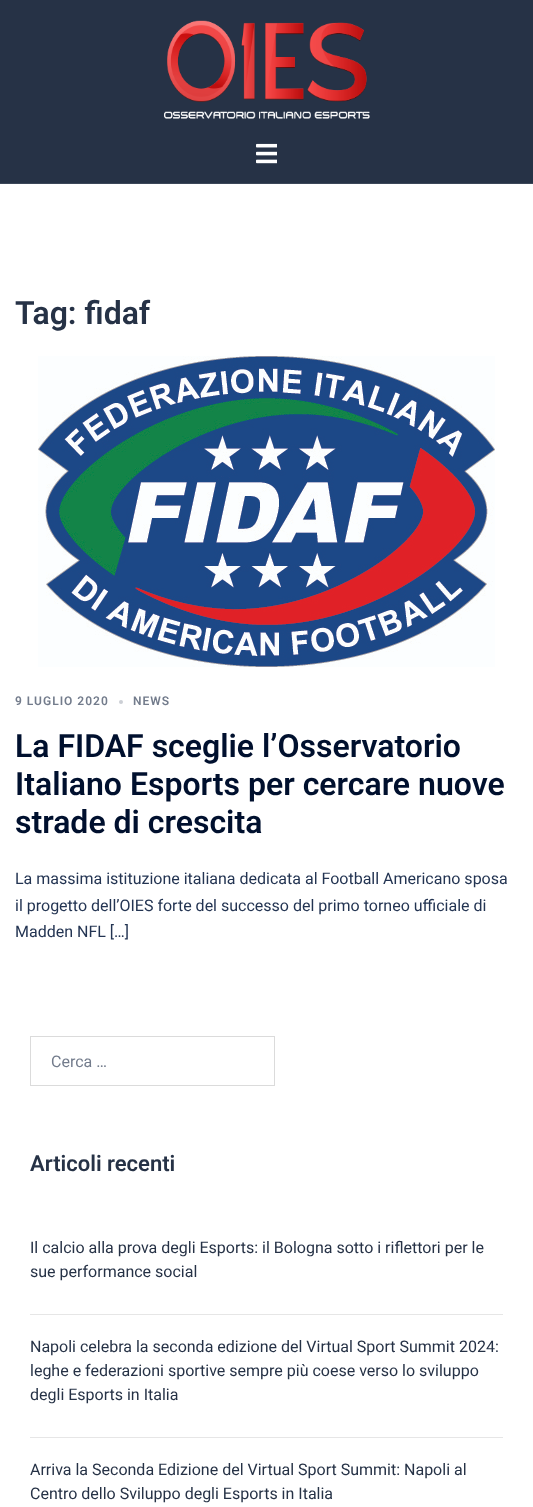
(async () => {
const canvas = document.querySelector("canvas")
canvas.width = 533
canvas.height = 1507
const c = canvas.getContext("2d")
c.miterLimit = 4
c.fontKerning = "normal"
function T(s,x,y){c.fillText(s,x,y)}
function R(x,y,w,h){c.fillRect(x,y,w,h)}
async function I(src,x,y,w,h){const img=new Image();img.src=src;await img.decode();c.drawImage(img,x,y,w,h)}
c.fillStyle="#fff"
R(0,0,533,1507)
c.fillStyle="#263246"
R(0,0,533,183)
c.fillStyle="#3c4759"
R(0,183,533,1)
await I("1.png",164,20,206,99)
await I("2.png",256,143,21,21)
c.font="600 32px Roboto"
c.fillStyle="#263246"
T("Tag: fidaf",15,324)
await I("3.png",38,356,457,311)
c.letterSpacing="1px"
c.font="600 12px Roboto"
c.fillStyle="#737c8c"
T("9 LUGLIO 2020",15,705)
c.fillStyle="#cccfd5"
c.beginPath()
c.arc(121,702,2,0,7)
c.fill()
c.fillStyle="#737c8c"
T("NEWS",133,705)
c.letterSpacing="0px"
c.font="600 32px Roboto"
c.fillStyle="#00102e"
T("La FIDAF sceglie l’Osservatorio",15,757)
T("Italiano Esports per cercare nuove",15,795)
T("strade di crescita",15,833)
c.font="16px Roboto"
c.fillStyle="#233452"
T("La massima istituzione italiana dedicata al Football Americano sposa",15,884)
T("il progetto dell’OIES forte del successo del primo torneo ufficiale di",15,911)
T("Madden NFL […]",15,937)
c.strokeStyle="#dbdbdb"
c.strokeRect(30.5,1036.5,244,49)
c.fillStyle="#737c8c"
T("Cerca …",51,1067)
c.font="600 22px Roboto"
c.fillStyle="#263246"
T("Articoli recenti",30,1171)
c.fillStyle="#e6e6e6"
R(30,1314,473,1)
c.font="16px Roboto"
c.fillStyle="#263246"
T("Il calcio alla prova degli Esports: il Bologna sotto i riflettori per le",30,1253)
T("sue performance social",30,1277)
c.fillStyle="#e6e6e6"
R(30,1437,473,1)
c.fillStyle="#263246"
T("Napoli celebra la seconda edizione del Virtual Sport Summit 2024:",30,1352)
T("leghe e federazioni sportive sempre più coese verso lo sviluppo",30,1376)
T("degli Esports in Italia",30,1400)
T("Arriva la Seconda Edizione del Virtual Sport Summit: Napoli al",30,1475)
T("Centro dello Sviluppo degli Esports in Italia",30,1499)
})()
